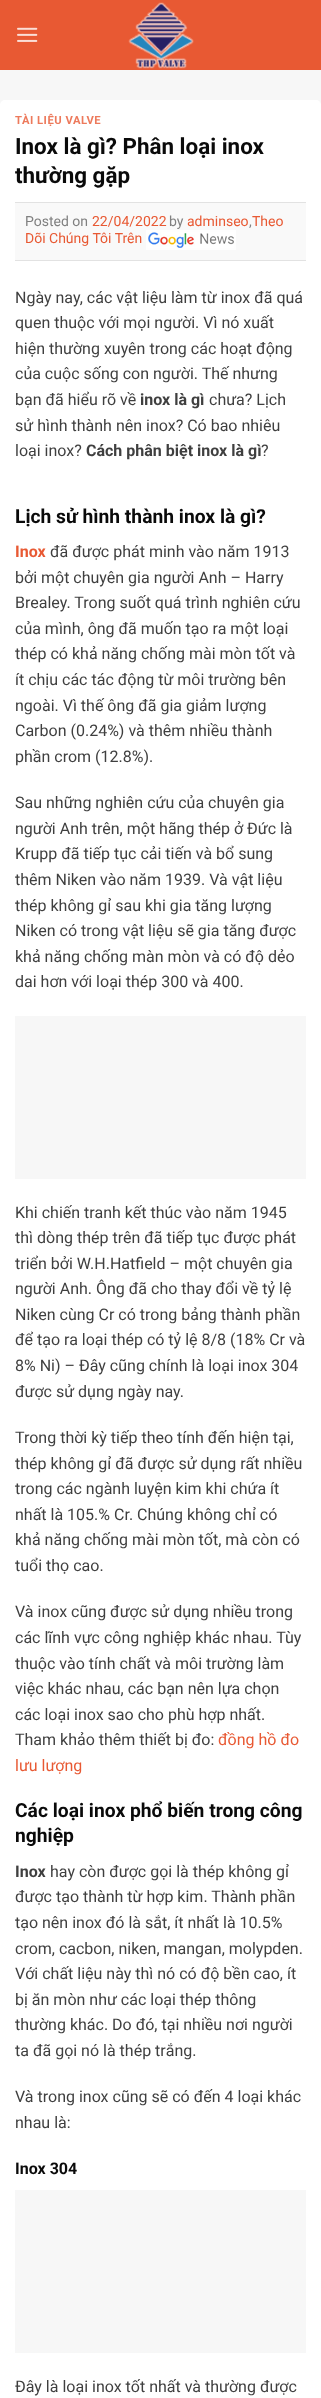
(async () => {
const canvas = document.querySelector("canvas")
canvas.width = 321
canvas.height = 2398
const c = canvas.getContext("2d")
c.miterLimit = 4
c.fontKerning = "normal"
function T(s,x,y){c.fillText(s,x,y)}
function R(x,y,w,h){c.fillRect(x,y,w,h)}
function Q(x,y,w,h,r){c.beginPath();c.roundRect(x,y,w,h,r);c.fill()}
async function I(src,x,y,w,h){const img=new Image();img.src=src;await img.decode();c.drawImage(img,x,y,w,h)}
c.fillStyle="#f7f7f7"
R(0,0,321,2398)
c.fillStyle="#e85933"
R(0,0,321,70)
await I("1.png",17,27,21,15)
await I("2.png",128,2,66,67)
c.fillStyle="#fff"
Q(0,100,321,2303,5)
c.letterSpacing="0.5px"
c.font="bold 11.25px Roboto"
c.fillStyle="#ed7a5c"
T("TÀI LIỆU VALVE",15,124)
c.letterSpacing="0px"
c.font="bold 22.4px Roboto"
c.fillStyle="#0a0a0a"
T("Inox là gì? Phân loại inox",15,154)
T("thường gặp",15,183)
c.fillStyle="#f9f9f9"
R(15,203,291,57)
c.fillStyle="#e2e2e2"
R(15,202,291,1)
R(15,260,291,1)
c.font="14px Roboto"
c.fillStyle="#808080"
T("Posted on",25,226)
c.fillStyle="#e85933"
T("Theo",252,226)
T("Dõi Chúng Tôi Trên",25,243)
await I("3.png",146,230,90,20)
T("22/04/2022",92,226)
c.fillStyle="#808080"
T("by",169,226)
c.fillStyle="#e85933"
T("adminseo",187,226)
c.fillStyle="#808080"
T(",",249,226)
c.font="16px Roboto"
c.fillStyle="#3f3f3f"
T("Ngày nay, các vật liệu làm từ inox đã quá",15,303)
T("quen thuộc với mọi người. Vì nó xuất",15,328)
T("hiện thường xuyên trong các hoạt động",15,354)
T("của cuộc sống con người. Thế nhưng",15,379)
T("bạn đã hiểu rõ về",15,405)
c.font="bold 16px Roboto"
T("inox là gì",140,405)
c.font="16px Roboto"
T("chưa? Lịch",209,405)
T("sử hình thành nên inox? Có bao nhiêu",15,431)
T("loại inox?",15,456)
c.font="bold 16px Roboto"
T("Cách phân biệt inox là gì",86,456)
c.font="16px Roboto"
T("?",261,456)
c.font="bold 19.25px Roboto"
c.fillStyle="#0a0a0a"
T("Lịch sử hình thành inox là gì?",15,523)
c.font="bold 16px Roboto"
c.fillStyle="#e85933"
T("Inox",15,557)
c.font="16px Roboto"
c.fillStyle="#3f3f3f"
T("đã được phát minh vào năm 1913",50,557)
T("bởi một chuyên gia người Anh – Harry",15,583)
T("Brealey. Trong suốt quá trình nghiên cứu",15,608)
T("của mình, ông đã muốn tạo ra một loại",15,634)
T("thép có khả năng chống mài mòn tốt và",15,659)
T("ít chịu các tác động từ môi trường bên",15,685)
T("ngoài. Vì thế ông đã gia giảm lượng",15,711)
T("Carbon (0.24%) và thêm nhiều thành",15,736)
T("phần crom (12.8%).",15,762)
T("Sau những nghiên cứu của chuyên gia",15,808)
T("người Anh trên, một hãng thép ở Đức là",15,834)
T("Krupp đã tiếp tục cải tiến và bổ sung",15,859)
T("thêm Niken vào năm 1939. Và vật liệu",15,885)
T("thép không gỉ sau khi gia tăng lượng",15,911)
T("Niken có trong vật liệu sẽ gia tăng được",15,936)
T("khả năng chống màn mòn và có độ dẻo",15,962)
T("dai hơn với loại thép 300 và 400.",15,987)
c.fillStyle="#f7f7f7"
R(15,1016,291,163)
c.fillStyle="#3f3f3f"
T("Khi chiến tranh kết thúc vào năm 1945",15,1218)
T("thì dòng thép trên đã tiếp tục được phát",15,1243)
T("triển bởi W.H.Hatfield – một chuyên gia",15,1269)
T("người Anh. Ông đã cho thay đổi về tỷ lệ",15,1294)
T("Niken cùng Cr có trong bảng thành phần",15,1320)
T("để tạo ra loại thép có tỷ lệ 8/8 (18% Cr và",15,1345)
T("8% Ni) – Đây cũng chính là loại inox 304",15,1371)
T("được sử dụng ngày nay.",15,1397)
T("Trong thời kỳ tiếp theo tính đến hiện tại,",15,1443)
T("thép không gỉ đã được sử dụng rất nhiều",15,1469)
T("trong các ngành luyện kim khi chứa ít",15,1494)
T("nhất là 105.% Cr. Chúng không chỉ có",15,1520)
T("khả năng chống mài mòn tốt, mà còn có",15,1545)
T("tuổi thọ cao.",15,1571)
T("Và inox cũng được sử dụng nhiều trong",15,1617)
T("các lĩnh vực công nghiệp khác nhau. Tùy",15,1643)
T("thuộc vào tính chất và môi trường làm",15,1669)
T("việc khác nhau, các bạn nên lựa chọn",15,1694)
T("các loại inox sao cho phù hợp nhất.",15,1720)
T("Tham khảo thêm thiết bị đo:",15,1745)
c.fillStyle="#e85933"
T("đồng hồ đo",218,1745)
T("lưu lượng",15,1771)
c.font="bold 19.25px Roboto"
c.fillStyle="#0a0a0a"
T("Các loại inox phổ biến trong công",15,1817)
T("nghiệp",15,1842)
c.font="bold 16px Roboto"
c.fillStyle="#3f3f3f"
T("Inox",15,1877)
c.font="16px Roboto"
T("hay còn được gọi là thép không gỉ",50,1877)
T("được tạo thành từ hợp kim. Thành phần",15,1902)
T("tạo nên inox đó là sắt, ít nhất là 10.5%",15,1928)
T("crom, cacbon, niken, mangan, molypden.",15,1954)
T("Với chất liệu này thì nó có độ bền cao, ít",15,1979)
T("bị ăn mòn như các loại thép thông",15,2005)
T("thường khác. Do đó, tại nhiều nơi người",15,2030)
T("ta đã gọi nó là thép trắng.",15,2056)
T("Và trong inox cũng sẽ có đến 4 loại khác",15,2102)
T("nhau là:",15,2128)
c.font="bold 16px Roboto"
c.fillStyle="#0a0a0a"
T("Inox 304",15,2174)
c.fillStyle="#f7f7f7"
R(15,2190,291,163)
c.font="16px Roboto"
c.fillStyle="#3f3f3f"
T("Đây là loại inox tốt nhất và thường được",15,2392)
})()
